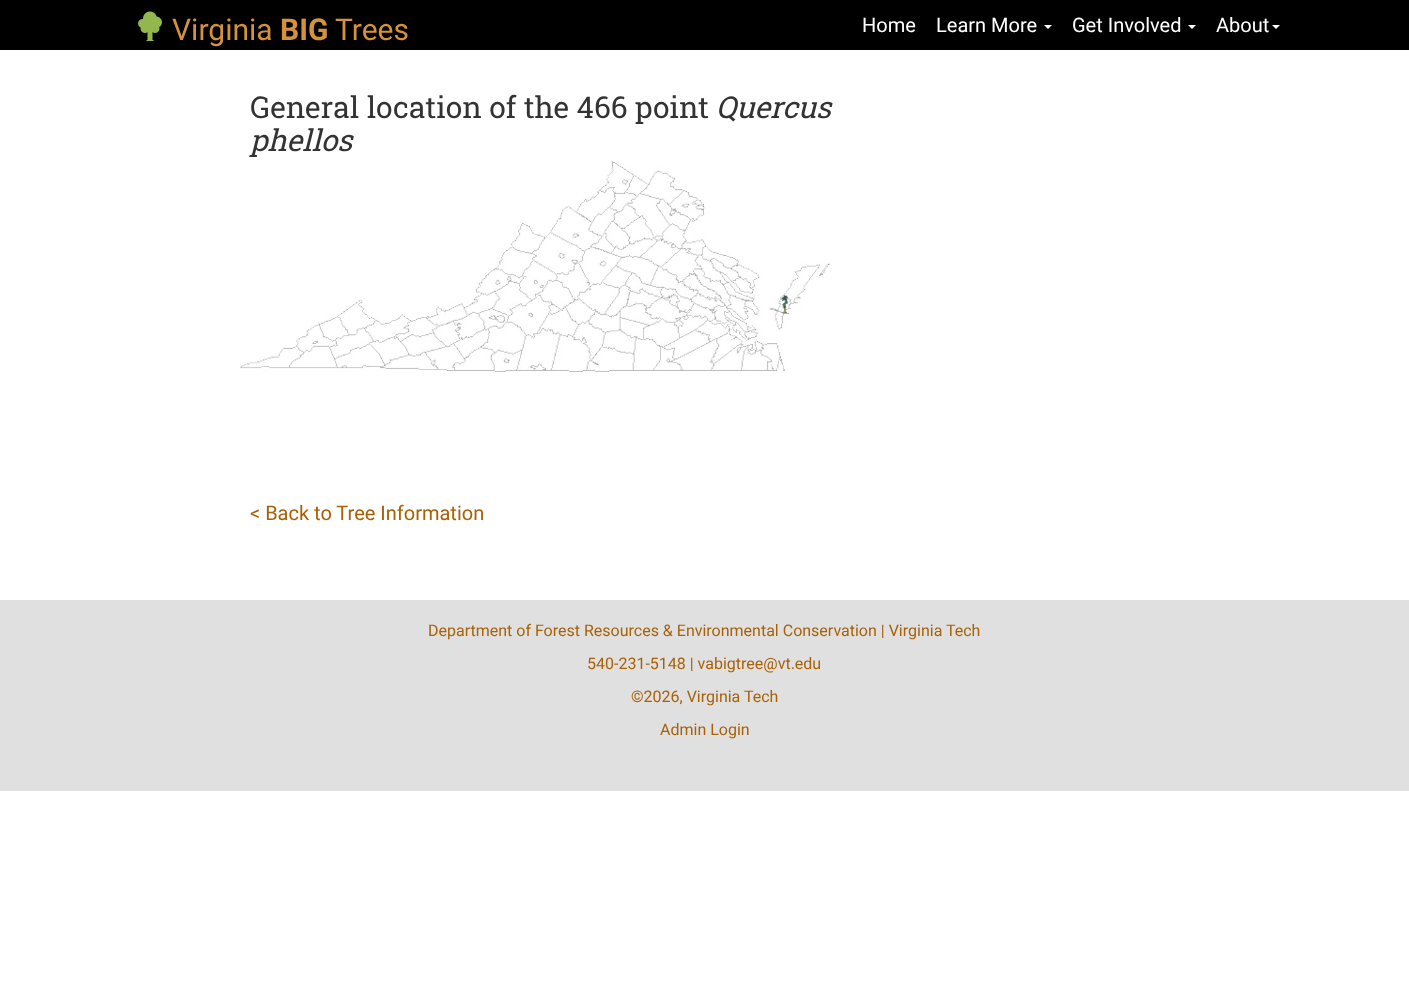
(async () => {
const canvas = document.querySelector("canvas")
canvas.width = 1409
canvas.height = 983
const c = canvas.getContext("2d")
c.miterLimit = 4
c.fontKerning = "normal"
function T(s,x,y){c.fillText(s,x,y)}
function R(x,y,w,h){c.fillRect(x,y,w,h)}
async function I(src,x,y,w,h){const img=new Image();img.src=src;await img.decode();c.drawImage(img,x,y,w,h)}
let path
c.fillStyle="#fff"
R(0,0,1409,983)
c.fillStyle="#000"
R(0,0,1409,50)
await I("1.png",138,11,24,30)
c.font="30px Roboto"
c.fillStyle="#d4923f"
T("Virginia",172,40)
c.font="bold 30px Roboto"
T("BIG",280,40)
c.font="30px Roboto"
T("Trees",335,40)
c.font="20px Roboto"
c.fillStyle="#fff"
T("Home",862,32)
T("Learn More",936,32)
path = new Path2D("M1044 25h8l-4 4z")
c.fill(path)
T("Get Involved",1072,32)
path = new Path2D("M1188 25h8l-4 4z")
c.fill(path)
T("About",1216,32)
path = new Path2D("M1272 25h8l-4 4z")
c.fill(path)
c.font="30px Roboto Slab"
c.fillStyle="#333"
T("General location of the 466 point",250,118)
c.font="italic 30px Roboto Slab"
T("Quercus",716,118)
T("phellos",250,151)
await I("2.png",240,161,590,211)
await I("3.png",769,295,21,19)
c.font="20px Roboto"
c.fillStyle="#a86107"
T("< Back to Tree Information",250,520)
c.fillStyle="#e0e0e0"
R(0,600,1409,191)
c.font="16px Roboto"
c.fillStyle="#a86107"
T("Department of Forest Resources & Environmental Conservation | Virginia Tech",428,636)
T("540-231-5148 | vabigtree@vt.edu",587,669)
T("©2026, Virginia Tech",631,702)
T("Admin Login",660,735)
})()
